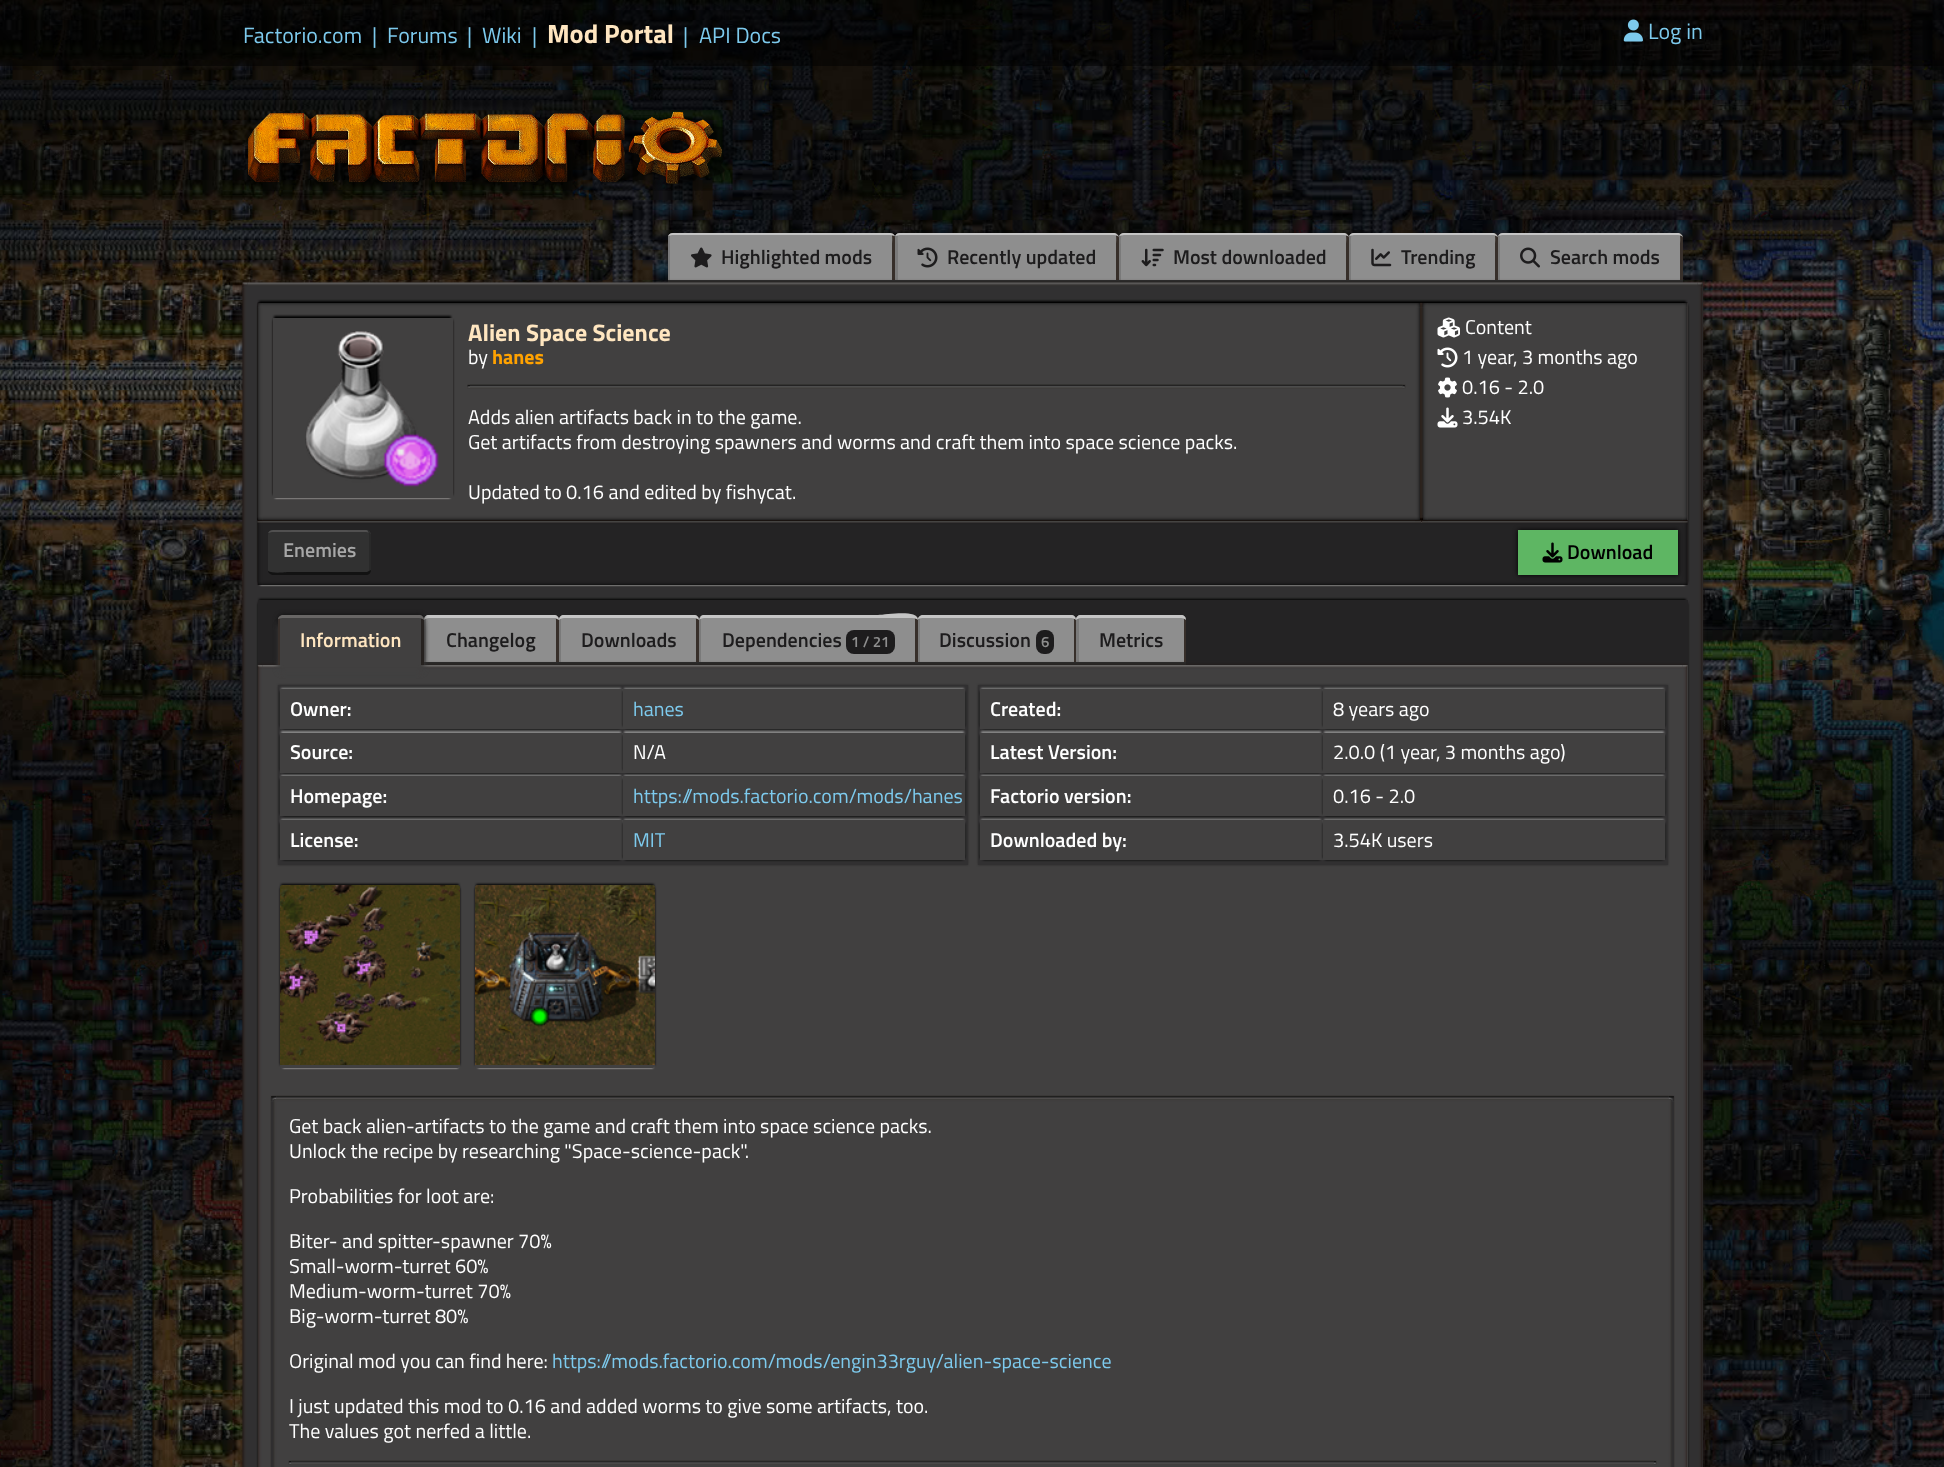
(async () => {
const canvas = document.querySelector("canvas")
canvas.width = 1944
canvas.height = 1467
const c = canvas.getContext("2d")
c.miterLimit = 4
c.fontKerning = "normal"
function T(s,x,y){c.fillText(s,x,y)}
function R(x,y,w,h){c.fillRect(x,y,w,h)}
function Q(x,y,w,h,r){c.beginPath();c.roundRect(x,y,w,h,r);c.fill()}
async function I(src,x,y,w,h){const img=new Image();img.src=src;await img.decode();c.drawImage(img,x,y,w,h)}
let path
c.fillStyle="#fff"
R(0,0,1944,1467)
await I("1.png",0,0,1944,1467)
c.fillStyle="#00000080"
R(0,0,1944,66)
c.font="22px Titillium Web"
c.fillStyle="#7dcaed"
T("Factorio.com",243,43)
T("|",372,43)
T("Forums",387,43)
T("|",467,43)
T("Wiki",482,43)
T("|",532,43)
c.font="bold 26.5px Titillium Web"
c.fillStyle="#ffe6c0"
T("Mod Portal",547,43)
c.font="22px Titillium Web"
c.fillStyle="#7dcaed"
T("|",683,43)
T("API Docs",699,43)
await I("2.png",1623,19,20,23)
T("Log in",1648,39)
await I("3.png",247,111,490,80)
c.fillStyle="#8e8e8e"
c.beginPath()
c.roundRect(668,233,227,50,[5,5,0,0])
c.fill()
c.fillStyle="#372f2a"
path = new Path2D("M892 283h3v-45c0-3-2-5-4-5c2 3 1 9 1 12z")
c.fill(path)
c.fillStyle="#7a7a7a"
path = new Path2D("M671 233c-2 1-3 3-3 5v45h2v-38c0-3-1-8 1-12z")
c.fill(path)
c.fillStyle="#2d2d2d"
R(668,280,227,3)
c.fillStyle="#c5c5c5"
path = new Path2D("M672 235h218c2 0 3 1 5 1c-1-2-3-3-5-3h-217c-2 0-4 1-5 3z")
c.fill(path)
await I("4.png",691,247,21,21)
c.font="600 20px Titillium Web"
c.fillStyle="#1d1c1d"
T("Highlighted mods",721,264)
c.fillStyle="#8e8e8e"
c.beginPath()
c.roundRect(895,233,224,50,[5,5,0,0])
c.fill()
c.fillStyle="#372f2a"
path = new Path2D("M1116 283h3v-45c0-3-2-5-4-5c2 3 1 9 1 12z")
c.fill(path)
c.fillStyle="#7a7a7a"
path = new Path2D("M899 233c-2 0-4 2-4 5v45h3v-38c0-3-1-9 1-12z")
c.fill(path)
c.fillStyle="#2d2d2d"
R(895,280,224,3)
c.fillStyle="#c5c5c5"
path = new Path2D("M900 235h214c2 0 4 1 5 2c-1-2-3-4-5-4h-214c-2 0-4 1-5 3c2 0 3-1 5-1z")
c.fill(path)
await I("5.png",917,247,21,21)
c.fillStyle="#1d1c1d"
T("Recently updated",947,264)
c.fillStyle="#8e8e8e"
c.beginPath()
c.roundRect(1119,233,230,50,[5,5,0,0])
c.fill()
c.fillStyle="#372f2a"
path = new Path2D("M1346 283h3v-45c0-3-2-5-4-5c2 3 1 9 1 12z")
c.fill(path)
c.fillStyle="#7a7a7a"
path = new Path2D("M1123 233c-3 1-4 3-4 5v45h2v-38c0-3-1-8 2-12z")
c.fill(path)
c.fillStyle="#2d2d2d"
R(1119,280,230,3)
c.fillStyle="#c5c5c5"
path = new Path2D("M1124 235h220c2 0 4 1 5 2c-1-2-3-4-5-4h-220c-2 0-4 1-5 3c2 0 3-1 5-1z")
c.fill(path)
await I("6.png",1141,248,23,19)
c.fillStyle="#1d1c1d"
T("Most downloaded",1173,264)
c.fillStyle="#8e8e8e"
c.beginPath()
c.roundRect(1349,233,149,50,[5,5,0,0])
c.fill()
c.fillStyle="#372f2a"
path = new Path2D("M1495 283h3v-45c0-3-2-5-4-5c2 3 1 9 1 12z")
c.fill(path)
c.fillStyle="#7a7a7a"
path = new Path2D("M1353 233c-3 1-4 3-4 5v45h2v-38c0-3-1-8 2-12z")
c.fill(path)
c.fillStyle="#2d2d2d"
R(1349,280,149,3)
c.fillStyle="#c5c5c5"
path = new Path2D("M1354 235h140l4 2c-1-2-3-4-5-4h-139c-2 0-4 1-5 3c2 0 3-1 5-1z")
c.fill(path)
await I("7.png",1371,248,21,19)
c.fillStyle="#1d1c1d"
T("Trending",1401,264)
c.fillStyle="#8e8e8e"
c.beginPath()
c.roundRect(1498,233,185,50,[5,5,0,0])
c.fill()
c.fillStyle="#372f2a"
path = new Path2D("M1680 283h3v-45c0-3-2-5-4-5c2 3 1 9 1 12z")
c.fill(path)
c.fillStyle="#7a7a7a"
path = new Path2D("M1501 233c-2 1-3 3-3 5v45h2v-38c0-3-1-8 1-12z")
c.fill(path)
c.fillStyle="#2d2d2d"
R(1498,280,185,3)
c.fillStyle="#c5c5c5"
path = new Path2D("M1502 235h176c2 0 4 1 5 2c-1-2-3-4-5-4h-175c-2 0-4 1-5 3z")
c.fill(path)
await I("8.png",1520,247,20,21)
c.fillStyle="#1d1c1d"
T("Search mods",1550,264)
c.fillStyle="#201815"
c.filter="blur(2px)"
c.beginPath()
c.rect(243,283,1460,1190)
c.fill()
c.filter="none"
c.fillStyle="#313031"
R(243,283,1460,1184)
await I("9.png",242,282,1461,1185)
c.fillStyle="#ebe6e4"
c.filter="blur(1px)"
c.beginPath()
c.rect(260,308,1425,277)
c.fill()
c.filter="none"
c.fillStyle="#0f0d0c"
c.filter="blur(1px)"
c.beginPath()
c.rect(263,305,1425,278)
c.fill()
c.filter="none"
c.filter="blur(1px)"
c.beginPath()
c.rect(258,305,1425,278)
c.fill()
c.filter="none"
c.fillStyle="#000"
c.filter="blur(1px)"
c.beginPath()
c.rect(259,301,1427,280)
c.fill()
c.filter="none"
c.fillStyle="#414040"
R(1420,303,3,216)
c.fillStyle="#242324"
R(258,520,1430,65)
await I("18.png",257,517,1431,68)
c.fillStyle="#414040"
R(258,303,1162,217)
await I("10.png",257,302,1166,221)
c.fillStyle="#ebe6e4"
c.filter="blur(1px)"
c.beginPath()
c.rect(275,323,175,175)
c.fill()
c.filter="none"
c.fillStyle="#0f0d0c"
c.filter="blur(1px)"
c.beginPath()
c.rect(278,320,175,175)
c.fill()
c.filter="none"
c.filter="blur(1px)"
c.beginPath()
c.rect(273,320,175,175)
c.fill()
c.filter="none"
c.fillStyle="#000"
c.filter="blur(1px)"
c.beginPath()
c.rect(274,316,177,178)
c.fill()
c.filter="none"
c.fillStyle="#414040"
R(273,318,180,180)
await I("11.png",305,331,134,156)
c.font="bold 24px Titillium Web"
c.fillStyle="#ffe6c0"
T("Alien Space Science",468,341)
c.font="20px Titillium Web"
c.fillStyle="#fff"
T("by",468,364)
c.font="bold 20px Titillium Web"
c.fillStyle="#ffa200"
T("hanes",492,364)
await I("12.png",467,384,939,5)
c.font="20px Titillium Web"
c.fillStyle="#fff"
T("Adds alien artifacts back in to the game.",468,424)
T("Get artifacts from destroying spawners and worms and craft them into space science packs.",468,449)
T("Updated to 0.16 and edited by fishycat.",468,499)
c.fillStyle="#414040"
R(1423,303,265,217)
c.fillStyle="#000"
c.filter="blur(2.5px)"
c.beginPath()
c.rect(1518,530,160,45)
c.fill()
c.filter="none"
await I("13.png",1420,302,268,221)
await I("14.png",1437,317,23,21)
c.fillStyle="#fff"
T("Content",1465,334)
await I("15.png",1437,347,21,21)
T("1 year, 3 months ago",1462,364)
await I("16.png",1438,377,19,21)
T("0.16 - 2.0",1462,394)
await I("17.png",1437,407,21,21)
T("3.54K",1462,424)
c.fillStyle="#313131"
Q(268,530,103,45,5)
c.fillStyle="#515050"
path = new Path2D("M272 532h94c2 0 3 1 5 2c-1-2-3-4-5-4h-93c-2 0-4 1-5 3z")
c.fill(path)
c.fillStyle="#292929"
path = new Path2D("M367 575c2-1 4-3 4-5v-35c0-2-2-4-4-5c1 1 2 3 2 5v35c0 2-1 4-2 5z")
c.fill(path)
c.fillStyle="#121212"
path = new Path2D("M268 571c0 2 3 4 5 4h93c3 0 5-2 5-5l-4 2h-79c-1 0-15 2-20-1z")
c.fill(path)
c.font="600 20px Titillium Web"
c.fillStyle="#a7a7a7"
T("Enemies",283,557)
c.fillStyle="#5eb663"
R(1518,530,160,45)
await I("19.png",1542,542,21,21)
c.fillStyle="#000"
T("Download",1567,559)
c.fillStyle="#0f0d0c"
c.filter="blur(1px)"
c.beginPath()
c.rect(263,603,1425,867)
c.fill()
c.filter="none"
c.filter="blur(1px)"
c.beginPath()
c.rect(258,603,1425,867)
c.fill()
c.filter="none"
c.fillStyle="#000"
c.filter="blur(1px)"
c.beginPath()
c.rect(259,599,1427,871)
c.fill()
c.filter="none"
c.fillStyle="#242324"
R(258,600,1430,65)
c.fillStyle="#8e8e8e"
c.beginPath()
c.roundRect(424,615,135,50,[5,5,0,0])
c.fill()
c.fillStyle="#7a7a7a"
path = new Path2D("M428 615c-2 1-4 3-4 5v45h2v-45c0-2 1-3 2-5z")
c.fill(path)
c.fillStyle="#372f2a"
path = new Path2D("M556 665h3v-45c0-3-2-5-5-5c1 1 2 3 2 5z")
c.fill(path)
c.fillStyle="#2d2d2d"
R(424,662,135,3)
c.fillStyle="#c5c5c5"
path = new Path2D("M429 618h126l4 2c0-3-2-5-5-5h-125c-3 0-5 2-5 5c1-1 3-2 5-2z")
c.fill(path)
c.fillStyle="#8e8e8e"
c.beginPath()
c.roundRect(559,615,140,50,[5,5,0,0])
c.fill()
c.fillStyle="#372f2a"
path = new Path2D("M696 665h3v-45c0-3-2-5-5-5c1 1 2 3 2 5z")
c.fill(path)
c.fillStyle="#7a7a7a"
path = new Path2D("M563 615c-2 1-4 3-4 5v45h2v-45c0-2 1-3 2-5z")
c.fill(path)
c.fillStyle="#2d2d2d"
R(559,662,140,3)
c.fillStyle="#8e8e8e"
c.beginPath()
c.roundRect(699,615,219,50,[5,5,0,0])
c.fill()
c.fillStyle="#372f2a"
path = new Path2D("M915 665h3v-45c0-3-2-5-5-5c1 1 2 3 2 5z")
c.fill(path)
c.fillStyle="#7a7a7a"
path = new Path2D("M703 615c-2 1-4 3-4 5v45h2v-45c0-2 1-3 2-5z")
c.fill(path)
c.fillStyle="#2d2d2d"
R(699,662,219,3)
c.fillStyle="#8e8e8e"
c.beginPath()
c.roundRect(918,615,158,50,[5,5,0,0])
c.fill()
c.fillStyle="#372f2a"
path = new Path2D("M1074 665h2v-45c0-2-2-4-4-5c1 2 2 3 2 5z")
c.fill(path)
c.fillStyle="#7a7a7a"
path = new Path2D("M922 615c-3 1-4 3-4 5v45h2v-45c0-2 1-3 2-5z")
c.fill(path)
c.fillStyle="#2d2d2d"
R(918,662,158,3)
c.fillStyle="#8e8e8e"
c.beginPath()
c.roundRect(1076,615,110,50,[5,5,0,0])
c.fill()
c.fillStyle="#372f2a"
path = new Path2D("M1184 665h2v-45c0-2-2-4-4-5c1 2 2 3 2 5z")
c.fill(path)
c.fillStyle="#7a7a7a"
path = new Path2D("M1081 615c-3 0-5 2-5 5v45h3v-45c0-2 1-4 2-5z")
c.fill(path)
c.fillStyle="#2d2d2d"
R(1076,662,110,3)
c.save()
c.beginPath()
c.rect(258,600,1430,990)
c.clip()
c.fillStyle="#201815"
c.filter="blur(2px)"
c.beginPath()
c.rect(258,665,1430,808)
c.fill()
c.filter="none"
c.restore()
c.fillStyle="#414040"
R(262,665,1426,802)
await I("20.png",257,665,1431,802)
c.fillStyle="#101010"
c.filter="blur(2.5px)"
c.beginPath()
c.roundRect(278,615,146,50,5)
c.fill()
c.filter="none"
c.fillStyle="#414040"
c.filter="blur(2.5px)"
c.beginPath()
c.roundRect(278,623,146,50,5)
c.fill()
c.filter="none"
c.beginPath()
c.roundRect(278,615,146,50,[5,5,0,0])
c.fill()
c.fillStyle="#262220"
path = new Path2D("M421 665h3v-45c0-3-2-5-5-5c1 1 2 3 2 5z")
c.fill(path)
c.fillStyle="#372f2b"
path = new Path2D("M282 615c-3 1-4 3-4 5v45h2v-45c0-2 1-3 2-5z")
c.fill(path)
c.fillStyle="#686665"
path = new Path2D("M282 618h137c2 0 4 1 5 2c0-3-2-5-5-5h-136c-2 0-5 2-5 4z")
c.fill(path)
c.fillStyle="#ffe6c0"
T("Information",300,647)
c.fillStyle="#1d1c1d"
T("Changelog",446,647)
c.fillStyle="#c5c5c5"
path = new Path2D("M564 618h130c2 0 4 1 5 2c0-3-2-5-5-5h-130c-3 0-5 2-5 5c1-1 3-2 5-2z")
c.fill(path)
c.fillStyle="#1d1c1d"
T("Downloads",581,647)
c.fillStyle="#c5c5c5"
path = new Path2D("M704 618h208c3 0 5 1 6 2c0-11-32-5-40-5h-175l-2 1l-2 4c1-1 3-2 5-2z")
c.fill(path)
c.fillStyle="#1d1c1d"
T("Dependencies",722,647)
Q(846,630,49,24,8)
c.font="600 15px Titillium Web"
c.fillStyle="#8e8e8e"
T("1 / 21",851,647)
c.fillStyle="#c5c5c5"
path = new Path2D("M922 618h149c2 0 4 1 5 2c0-3-2-5-5-5h-148c-2 0-5 2-5 4z")
c.fill(path)
c.font="600 20px Titillium Web"
c.fillStyle="#1d1c1d"
T("Discussion",939,647)
Q(1036,630,18,24,8)
c.font="600 15px Titillium Web"
c.fillStyle="#8e8e8e"
T("6",1041,647)
c.fillStyle="#c5c5c5"
path = new Path2D("M1081 618h100c2 0 4 1 5 2c0-3-2-5-5-5h-100c-3 0-5 2-5 5c1-1 3-2 5-2z")
c.fill(path)
c.font="600 20px Titillium Web"
c.fillStyle="#1d1c1d"
T("Metrics",1099,647)
c.fillStyle="#2b2b2b"
c.filter="blur(1px)"
c.beginPath()
c.rect(278,685,690,180)
c.fill()
c.filter="none"
c.fillStyle="#313031"
R(278,685,690,180)
c.fillStyle="#000"
c.filter="blur(1px)"
c.beginPath()
c.rect(283,694,337,35)
c.fill()
c.filter="none"
c.filter="blur(1px)"
c.beginPath()
c.rect(280,691,338,35)
c.fill()
c.filter="none"
c.fillStyle="#888"
c.filter="blur(1px)"
c.beginPath()
c.rect(281,688,340,37)
c.fill()
c.filter="none"
c.fillStyle="#414040"
R(280,689,343,40)
c.fillStyle="#fff"
T("Owner:",290,716)
c.fillStyle="#000"
c.filter="blur(1px)"
c.beginPath()
c.rect(625,694,338,35)
c.fill()
c.filter="none"
c.filter="blur(1px)"
c.beginPath()
c.rect(628,691,337,35)
c.fill()
c.filter="none"
c.filter="blur(1px)"
c.beginPath()
c.rect(623,691,337,35)
c.fill()
c.filter="none"
c.fillStyle="#888"
c.filter="blur(1px)"
c.beginPath()
c.rect(624,688,340,37)
c.fill()
c.filter="none"
c.fillStyle="#414040"
R(623,689,342,40)
c.font="20px Titillium Web"
c.fillStyle="#7dcaed"
T("hanes",633,716)
c.fillStyle="#000"
c.filter="blur(1px)"
c.beginPath()
c.rect(283,738,337,35)
c.fill()
c.filter="none"
c.filter="blur(1px)"
c.beginPath()
c.rect(280,735,338,35)
c.fill()
c.filter="none"
c.fillStyle="#888"
c.filter="blur(1px)"
c.beginPath()
c.rect(281,731,340,38)
c.fill()
c.filter="none"
c.fillStyle="#414040"
R(280,733,343,40)
c.font="600 20px Titillium Web"
c.fillStyle="#fff"
T("Source:",290,759)
c.fillStyle="#000"
c.filter="blur(1px)"
c.beginPath()
c.rect(625,738,338,35)
c.fill()
c.filter="none"
c.filter="blur(1px)"
c.beginPath()
c.rect(628,735,337,35)
c.fill()
c.filter="none"
c.filter="blur(1px)"
c.beginPath()
c.rect(623,735,337,35)
c.fill()
c.filter="none"
c.fillStyle="#888"
c.filter="blur(1px)"
c.beginPath()
c.rect(624,731,340,38)
c.fill()
c.filter="none"
c.fillStyle="#414040"
R(623,733,342,40)
c.font="20px Titillium Web"
c.fillStyle="#fff"
T("N/A",633,759)
c.fillStyle="#000"
c.filter="blur(1px)"
c.beginPath()
c.rect(283,781,337,35)
c.fill()
c.filter="none"
c.filter="blur(1px)"
c.beginPath()
c.rect(280,779,338,35)
c.fill()
c.filter="none"
c.fillStyle="#888"
c.filter="blur(1px)"
c.beginPath()
c.rect(281,775,340,38)
c.fill()
c.filter="none"
c.fillStyle="#414040"
R(280,776,343,40)
c.font="600 20px Titillium Web"
c.fillStyle="#fff"
T("Homepage:",290,803)
c.fillStyle="#000"
c.filter="blur(1px)"
c.beginPath()
c.rect(625,781,338,35)
c.fill()
c.filter="none"
c.filter="blur(1px)"
c.beginPath()
c.rect(628,779,337,35)
c.fill()
c.filter="none"
c.filter="blur(1px)"
c.beginPath()
c.rect(623,779,337,35)
c.fill()
c.filter="none"
c.fillStyle="#888"
c.filter="blur(1px)"
c.beginPath()
c.rect(624,775,340,38)
c.fill()
c.filter="none"
c.fillStyle="#414040"
R(623,776,342,40)
c.font="20px Titillium Web"
c.fillStyle="#7dcaed"
T("https://mods.factorio.com/mods/hanes",633,803)
c.fillStyle="#000"
c.filter="blur(1px)"
c.beginPath()
c.rect(283,825,337,35)
c.fill()
c.filter="none"
c.filter="blur(1px)"
c.beginPath()
c.rect(280,823,338,35)
c.fill()
c.filter="none"
c.fillStyle="#888"
c.filter="blur(1px)"
c.beginPath()
c.rect(281,819,340,37)
c.fill()
c.filter="none"
c.fillStyle="#414040"
R(280,820,343,40)
c.font="600 20px Titillium Web"
c.fillStyle="#fff"
T("License:",290,847)
c.fillStyle="#000"
c.filter="blur(1px)"
c.beginPath()
c.rect(625,825,338,35)
c.fill()
c.filter="none"
c.filter="blur(1px)"
c.beginPath()
c.rect(628,823,337,35)
c.fill()
c.filter="none"
c.filter="blur(1px)"
c.beginPath()
c.rect(623,823,337,35)
c.fill()
c.filter="none"
c.fillStyle="#888"
c.filter="blur(1px)"
c.beginPath()
c.rect(624,819,340,37)
c.fill()
c.filter="none"
c.fillStyle="#414040"
R(623,820,342,40)
c.font="20px Titillium Web"
c.fillStyle="#7dcaed"
T("MIT",633,847)
c.fillStyle="#2b2b2b"
c.filter="blur(1px)"
c.beginPath()
c.rect(978,685,690,180)
c.fill()
c.filter="none"
c.fillStyle="#313031"
R(978,685,690,180)
c.fillStyle="#000"
c.filter="blur(1px)"
c.beginPath()
c.rect(983,694,337,35)
c.fill()
c.filter="none"
c.filter="blur(1px)"
c.beginPath()
c.rect(980,691,338,35)
c.fill()
c.filter="none"
c.fillStyle="#888"
c.filter="blur(1px)"
c.beginPath()
c.rect(981,688,340,37)
c.fill()
c.filter="none"
c.fillStyle="#414040"
R(980,689,343,40)
c.font="600 20px Titillium Web"
c.fillStyle="#fff"
T("Created:",990,716)
c.fillStyle="#000"
c.filter="blur(1px)"
c.beginPath()
c.rect(1325,694,338,35)
c.fill()
c.filter="none"
c.filter="blur(1px)"
c.beginPath()
c.rect(1328,691,337,35)
c.fill()
c.filter="none"
c.filter="blur(1px)"
c.beginPath()
c.rect(1323,691,337,35)
c.fill()
c.filter="none"
c.fillStyle="#888"
c.filter="blur(1px)"
c.beginPath()
c.rect(1324,688,340,37)
c.fill()
c.filter="none"
c.fillStyle="#414040"
R(1323,689,342,40)
c.font="20px Titillium Web"
c.fillStyle="#fff"
T("8 years ago",1333,716)
c.fillStyle="#000"
c.filter="blur(1px)"
c.beginPath()
c.rect(983,738,337,35)
c.fill()
c.filter="none"
c.filter="blur(1px)"
c.beginPath()
c.rect(980,735,338,35)
c.fill()
c.filter="none"
c.fillStyle="#888"
c.filter="blur(1px)"
c.beginPath()
c.rect(981,731,340,38)
c.fill()
c.filter="none"
c.fillStyle="#414040"
R(980,733,343,40)
c.font="600 20px Titillium Web"
c.fillStyle="#fff"
T("Latest Version:",990,759)
c.fillStyle="#000"
c.filter="blur(1px)"
c.beginPath()
c.rect(1325,738,338,35)
c.fill()
c.filter="none"
c.filter="blur(1px)"
c.beginPath()
c.rect(1328,735,337,35)
c.fill()
c.filter="none"
c.filter="blur(1px)"
c.beginPath()
c.rect(1323,735,337,35)
c.fill()
c.filter="none"
c.fillStyle="#888"
c.filter="blur(1px)"
c.beginPath()
c.rect(1324,731,340,38)
c.fill()
c.filter="none"
c.fillStyle="#414040"
R(1323,733,342,40)
c.font="20px Titillium Web"
c.fillStyle="#fff"
T("2.0.0 (1 year, 3 months ago)",1333,759)
c.fillStyle="#000"
c.filter="blur(1px)"
c.beginPath()
c.rect(983,781,337,35)
c.fill()
c.filter="none"
c.filter="blur(1px)"
c.beginPath()
c.rect(980,779,338,35)
c.fill()
c.filter="none"
c.fillStyle="#888"
c.filter="blur(1px)"
c.beginPath()
c.rect(981,775,340,38)
c.fill()
c.filter="none"
c.fillStyle="#414040"
R(980,776,343,40)
c.font="600 20px Titillium Web"
c.fillStyle="#fff"
T("Factorio version:",990,803)
c.fillStyle="#000"
c.filter="blur(1px)"
c.beginPath()
c.rect(1325,781,338,35)
c.fill()
c.filter="none"
c.filter="blur(1px)"
c.beginPath()
c.rect(1328,779,337,35)
c.fill()
c.filter="none"
c.filter="blur(1px)"
c.beginPath()
c.rect(1323,779,337,35)
c.fill()
c.filter="none"
c.fillStyle="#888"
c.filter="blur(1px)"
c.beginPath()
c.rect(1324,775,340,38)
c.fill()
c.filter="none"
c.fillStyle="#414040"
R(1323,776,342,40)
c.font="20px Titillium Web"
c.fillStyle="#fff"
T("0.16 - 2.0",1333,803)
c.fillStyle="#000"
c.filter="blur(1px)"
c.beginPath()
c.rect(983,825,337,35)
c.fill()
c.filter="none"
c.filter="blur(1px)"
c.beginPath()
c.rect(980,823,338,35)
c.fill()
c.filter="none"
c.fillStyle="#888"
c.filter="blur(1px)"
c.beginPath()
c.rect(981,819,340,37)
c.fill()
c.filter="none"
c.fillStyle="#414040"
R(980,820,343,40)
c.font="600 20px Titillium Web"
c.fillStyle="#fff"
T("Downloaded by:",990,847)
c.fillStyle="#000"
c.filter="blur(1px)"
c.beginPath()
c.rect(1325,825,338,35)
c.fill()
c.filter="none"
c.filter="blur(1px)"
c.beginPath()
c.rect(1328,823,337,35)
c.fill()
c.filter="none"
c.filter="blur(1px)"
c.beginPath()
c.rect(1323,823,337,35)
c.fill()
c.filter="none"
c.fillStyle="#888"
c.filter="blur(1px)"
c.beginPath()
c.rect(1324,819,340,37)
c.fill()
c.filter="none"
c.fillStyle="#414040"
R(1323,820,342,40)
c.font="20px Titillium Web"
c.fillStyle="#fff"
T("3.54K users",1333,847)
c.fillStyle="#ebe6e4"
c.filter="blur(1px)"
c.beginPath()
c.rect(283,890,175,178)
c.fill()
c.filter="none"
c.fillStyle="#0f0d0c"
c.filter="blur(1px)"
c.beginPath()
c.rect(285,888,175,177)
c.fill()
c.filter="none"
c.filter="blur(1px)"
c.beginPath()
c.rect(280,888,175,177)
c.fill()
c.filter="none"
c.fillStyle="#000"
c.filter="blur(1px)"
c.beginPath()
c.roundRect(281,884,178,180,1)
c.fill()
c.filter="none"
c.fillStyle="#414040"
Q(280,885,180,183,2.5)
await I("21.png",280,885,180,180)
c.fillStyle="#ebe6e4"
c.filter="blur(1px)"
c.beginPath()
c.rect(478,890,175,178)
c.fill()
c.filter="none"
c.fillStyle="#0f0d0c"
c.filter="blur(1px)"
c.beginPath()
c.rect(480,888,175,177)
c.fill()
c.filter="none"
c.filter="blur(1px)"
c.beginPath()
c.rect(475,888,175,177)
c.fill()
c.filter="none"
c.fillStyle="#000"
c.filter="blur(1px)"
c.beginPath()
c.roundRect(476,884,178,180,1)
c.fill()
c.filter="none"
c.fillStyle="#414040"
Q(475,885,180,183,2.5)
await I("22.png",475,885,180,180)
await I("23.png",270,1095,1405,372)
c.fillStyle="#fff"
T("Get back alien-artifacts to the game and craft them into space science packs.",289,1133)
T("Unlock the recipe by researching \"Space-science-pack\".",289,1158)
T("Probabilities for loot are:",289,1203)
T("Biter- and spitter-spawner 70%",289,1248)
T("Small-worm-turret 60%",289,1273)
T("Medium-worm-turret 70%",289,1298)
T("Big-worm-turret 80%",289,1323)
T("Original mod you can find here:",289,1368)
c.fillStyle="#7dcaed"
T("https://mods.factorio.com/mods/engin33rguy/alien-space-science",552,1368)
c.fillStyle="#fff"
T("I just updated this mod to 0.16 and added worms to give some artifacts, too.",289,1413)
T("The values got nerfed a little.",289,1438)
await I("24.png",288,1460,1369,5)
})()
